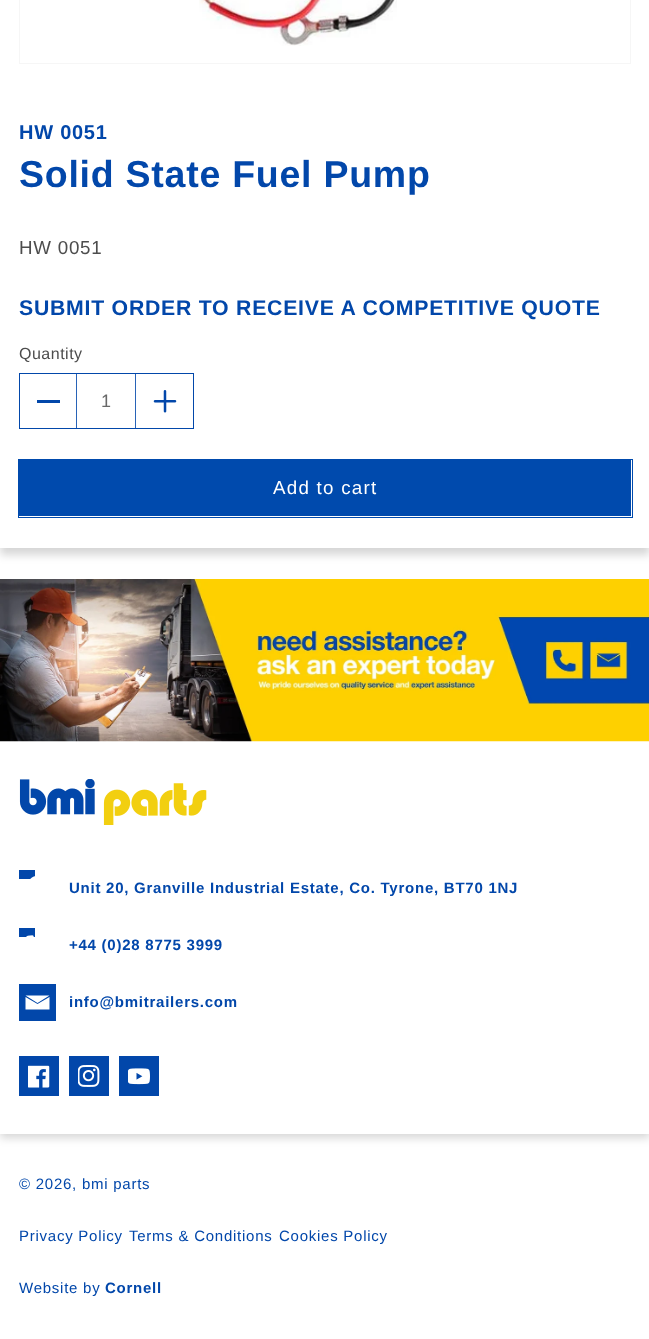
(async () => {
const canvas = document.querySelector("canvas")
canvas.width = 649
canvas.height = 1339
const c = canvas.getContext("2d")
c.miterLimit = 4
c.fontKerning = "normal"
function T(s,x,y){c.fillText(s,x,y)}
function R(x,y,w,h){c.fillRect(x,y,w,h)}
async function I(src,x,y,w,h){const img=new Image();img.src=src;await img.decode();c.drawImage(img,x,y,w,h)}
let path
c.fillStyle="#fff"
R(0,0,649,1339)
c.save()
path = new Path2D("M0 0h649v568h-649zm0-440h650v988h-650z")
c.clip(path,"evenodd")
c.fillStyle="#00000029"
c.filter="blur(4px)"
c.beginPath()
c.rect(0,-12,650,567)
c.fill()
c.filter="none"
c.restore()
c.strokeStyle="#f6f6f6"
c.strokeRect(19.5,-.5,611,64)
await I("1.png",199,0,198,46)
c.letterSpacing="0.75px"
c.font="bold 20px Liberation Sans"
c.fillStyle="#0247aa"
T("HW 0051",19,139)
c.font="bold 37.5px Liberation Sans"
T("Solid State Fuel Pump",19,187)
c.font="18.75px Liberation Sans"
c.fillStyle="#4d4d4d"
T("HW 0051",19,254)
c.font="bold 21.25px Liberation Sans"
c.fillStyle="#0247aa"
T("SUBMIT ORDER TO RECEIVE A COMPETITIVE QUOTE",19,315)
c.letterSpacing="0.5px"
c.font="16px Liberation Sans"
c.fillStyle="#4d4d4d"
T("Quantity",19,359)
c.strokeStyle="#0247aa"
c.strokeRect(19.5,373.5,174,55)
c.fillStyle="#0247aa"
R(37,400,23,3)
c.fillStyle="#2863b7"
R(135,374,1,54)
R(76,374,1,54)
c.letterSpacing="0px"
c.font="18px Liberation Sans"
c.fillStyle="#686868"
T("1",101,407)
await I("2.png",153,390,24,23)
c.strokeStyle="#004aad"
c.strokeRect(18.5,459.5,614,58)
c.fillStyle="#004aad"
R(19,460,612,56)
c.letterSpacing="1.25px"
c.font="18.75px Liberation Sans"
c.fillStyle="#fff"
T("Add to cart",273,494)
c.save()
path = new Path2D("M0 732h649v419h-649zm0 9h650v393h-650z")
c.clip(path,"evenodd")
c.fillStyle="#00000029"
c.filter="blur(4px)"
c.beginPath()
c.rect(0,745,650,393)
c.fill()
c.filter="none"
c.restore()
await I("3.png",0,579,649,163)
await I("4.png",19,779,188,46)
await I("5.png",19,870,16,9)
c.letterSpacing="0.75px"
c.font="bold 15px Liberation Sans"
c.fillStyle="#0247aa"
T("Unit 20, Granville Industrial Estate, Co. Tyrone, BT70 1NJ",69,893)
await I("6.png",19,928,16,9)
T("+44 (0)28 8775 3999",69,950)
path = new Path2D("M49.5 997v12.5h-24v-12.5l12 7zm-24-1.5h24l-12 7.5zm-6.5 25.5h37v-37h-37z")
c.fill(path)
T("info@bmitrailers.com",69,1007)
R(19,1056,40,40)
await I("7.png",28,1065,22,23)
R(69,1056,40,40)
await I("8.png",78,1065,22,22)
R(119,1056,40,40)
await I("9.png",128,1068,22,17)
c.font="15px Liberation Sans"
T("© 2026, bmi parts",19,1189)
T("Privacy Policy",19,1241)
T("Terms & Conditions",129,1241)
T("Cookies Policy",279,1241)
T("Website by",19,1293)
c.font="bold 15px Liberation Sans"
T("Cornell",105,1293)
})()
